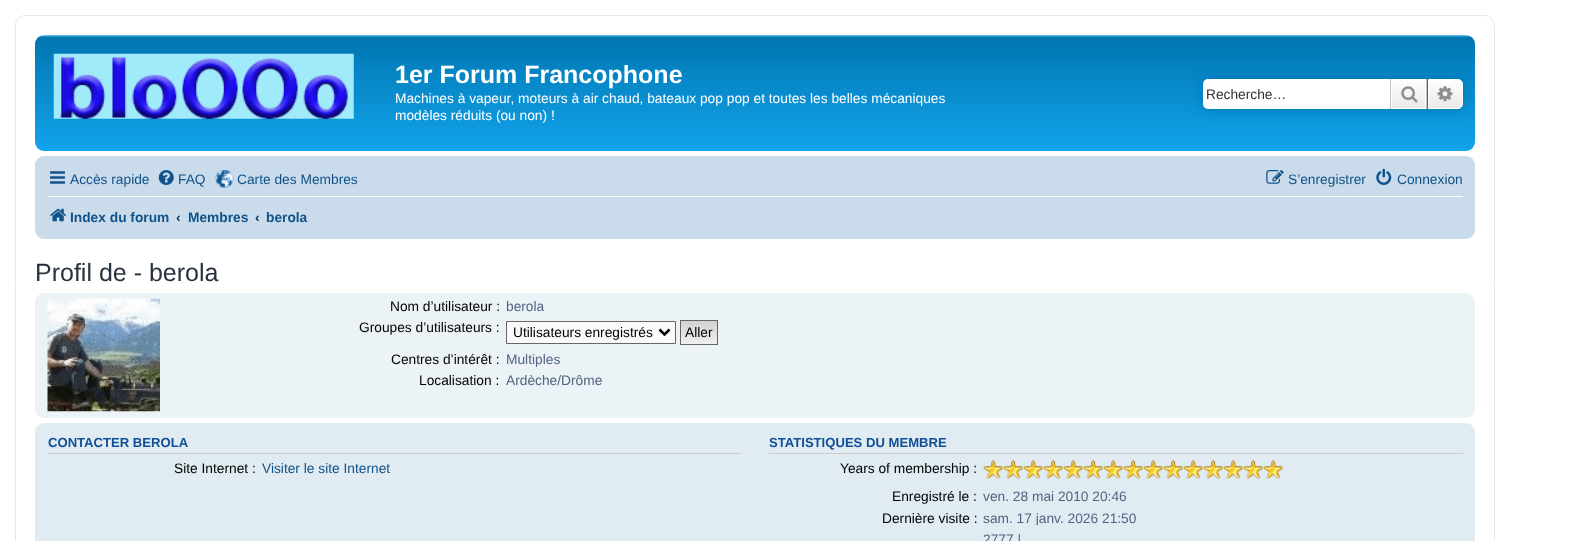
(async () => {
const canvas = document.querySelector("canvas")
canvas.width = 1583
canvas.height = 541
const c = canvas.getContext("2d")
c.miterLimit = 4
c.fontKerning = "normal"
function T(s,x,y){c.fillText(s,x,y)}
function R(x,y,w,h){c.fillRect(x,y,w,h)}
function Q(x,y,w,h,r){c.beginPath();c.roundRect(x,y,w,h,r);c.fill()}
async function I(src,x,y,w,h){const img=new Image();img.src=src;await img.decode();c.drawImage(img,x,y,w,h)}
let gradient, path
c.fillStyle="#fff"
R(0,0,1583,541)
c.beginPath()
c.roundRect(15.5,15.5,1479,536,9.5)
c.strokeStyle="#e6e9ed"
c.stroke()
gradient = c.createLinearGradient(755,35,755,151)
gradient.addColorStop(0,"#6aceff")
gradient.addColorStop(.02,"#0076b1")
gradient.addColorStop(.99,"#12a3eb")
gradient.addColorStop(1,"#12a3eb")
c.fillStyle = gradient
Q(35,35,1440,116,9)
await I("1.png",53,53,301,66)
c.font="bold 25px Liberation Sans"
c.fillStyle="#fff"
T("1er Forum Francophone",395,83)
c.font="13.75px Liberation Sans"
T("Machines à vapeur, moteurs à air chaud, bateaux pop pop et toutes les belles mécaniques",395,103)
T("modèles réduits (ou non) !",395,120)
c.fillStyle="#0075b0"
c.filter="blur(6px)"
c.beginPath()
c.roundRect(1203,79,260,30,5)
c.fill()
c.filter="none"
c.fillStyle="#fff"
c.beginPath()
c.roundRect(1203,79,187,30,[5,0,0,5])
c.fill()
c.fillStyle="#333"
T("Recherche…",1206,99)
gradient = c.createLinearGradient(1409,79,1409,109)
gradient.addColorStop(0,"#fff")
gradient.addColorStop(1,"#e9e9e9")
c.fillStyle = gradient
R(1392,80,33,28)
c.strokeStyle="#fff"
c.strokeRect(1391.5,79.5,34,29)
c.fillStyle="#c7c3bf"
R(1426,79,1,30)
R(1390,79,1,30)
await I("2.png",1401,86,17,17)
gradient = c.createLinearGradient(1445,79,1445,109)
gradient.addColorStop(0,"#fff")
gradient.addColorStop(1,"#e9e9e9")
c.fillStyle = gradient
c.beginPath()
c.roundRect(1428.5,79.5,34,29,[0,4.5,4.5,0])
c.fill()
c.stroke()
await I("3.png",1437,86,16,16)
c.fillStyle="#cadceb"
Q(35,156,1440,83,9)
await I("4.png",50,171,15,13)
c.fillStyle="#105289"
T("Accès rapide",70,184)
await I("5.png",158,170,16,15)
T("FAQ",178,184)
await I("6.png",215,170,19,18)
T("Carte des Membres",237,184)
await I("7.png",1266,170,18,14)
T("S’enregistrer",1288,184)
await I("8.png",1376,168,16,17)
T("Connexion",1397,184)
c.fillStyle="#fff"
R(48,196,1415,1)
await I("9.png",50,208,16,14)
c.font="bold 13.75px Liberation Sans"
c.fillStyle="#105289"
T("Index du forum",70,222)
c.fillStyle="#053754"
T("‹",176,222)
c.fillStyle="#105289"
T("Membres",188,222)
c.fillStyle="#053754"
T("‹",255,222)
c.fillStyle="#105289"
T("berola",266,222)
c.font="25px Liberation Sans"
c.fillStyle="#28313f"
T("Profil de - berola",35,281)
c.fillStyle="#ecf3f7"
Q(35,293,1440,125,9)
await I("10.png",47,298,113,114)
c.font="13.75px Liberation Sans"
c.fillStyle="#000"
T("Nom d’utilisateur :",390,311)
c.fillStyle="#536482"
T("berola",506,311)
c.fillStyle="#000"
T("Groupes d’utilisateurs :",359,332)
c.fillStyle="#fafafa"
c.beginPath()
c.rect(506.5,321.5,169,22)
c.fill()
c.strokeStyle="#666"
c.stroke()
path = new Path2D("M659.5 329.5l5 5l5-5")
c.strokeStyle="#000"
c.lineWidth=2.5
c.stroke(path)
c.fillStyle="#000"
T("Utilisateurs enregistrés",513,337)
gradient = c.createLinearGradient(699,321,699,344)
gradient.addColorStop(0,"#d2d2d2")
gradient.addColorStop(1,"#efefef")
c.fillStyle = gradient
R(681,321,36,23)
c.strokeStyle="#666"
c.lineWidth=1
c.strokeRect(680.5,320.5,37,24)
c.fillStyle="#000"
T("Aller",685,337)
T("Centres d’intérêt :",391,364)
c.fillStyle="#536482"
T("Multiples",506,364)
c.fillStyle="#000"
T("Localisation :",419,385)
c.fillStyle="#536482"
T("Ardèche/Drôme",506,385)
c.fillStyle="#e1ebf2"
Q(35,423,1440,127,9)
c.fillStyle="#ccc"
R(48,453,693,1)
c.font="bold 13.1px Liberation Sans"
c.fillStyle="#115098"
T("CONTACTER BEROLA",48,447)
c.font="13.75px Liberation Sans"
c.fillStyle="#000"
T("Site Internet :",174,473)
c.fillStyle="#105289"
T("Visiter le site Internet",262,473)
c.fillStyle="#ccc"
R(769,453,694,1)
c.font="bold 13.1px Liberation Sans"
c.fillStyle="#115098"
T("STATISTIQUES DU MEMBRE",769,447)
c.font="13.75px Liberation Sans"
c.fillStyle="#000"
T("Years of membership :",840,473)
await I("11.png",983,460,20,19)
await I("11.png",1003,460,20,19)
await I("12.png",1023,460,20,19)
await I("13.png",1043,460,20,19)
await I("11.png",1063,460,20,19)
await I("11.png",1083,460,20,19)
await I("11.png",1103,460,20,19)
await I("11.png",1123,460,20,19)
await I("11.png",1143,460,20,19)
await I("11.png",1163,460,20,19)
await I("13.png",1183,460,20,19)
await I("13.png",1203,460,20,19)
await I("13.png",1223,460,20,19)
await I("13.png",1243,460,20,19)
await I("13.png",1263,460,20,19)
T("Enregistré le :",892,501)
c.fillStyle="#536482"
T("ven. 28 mai 2010 20:46",983,501)
c.fillStyle="#000"
T("Dernière visite :",882,523)
c.save()
c.beginPath()
c.rect(978,510,456,15)
c.clip()
c.fillStyle="#536482"
T("sam. 17 janv. 2026 21:50",983,523)
c.restore()
c.fillStyle="#536482"
T("2777 |",983,544)
})()
